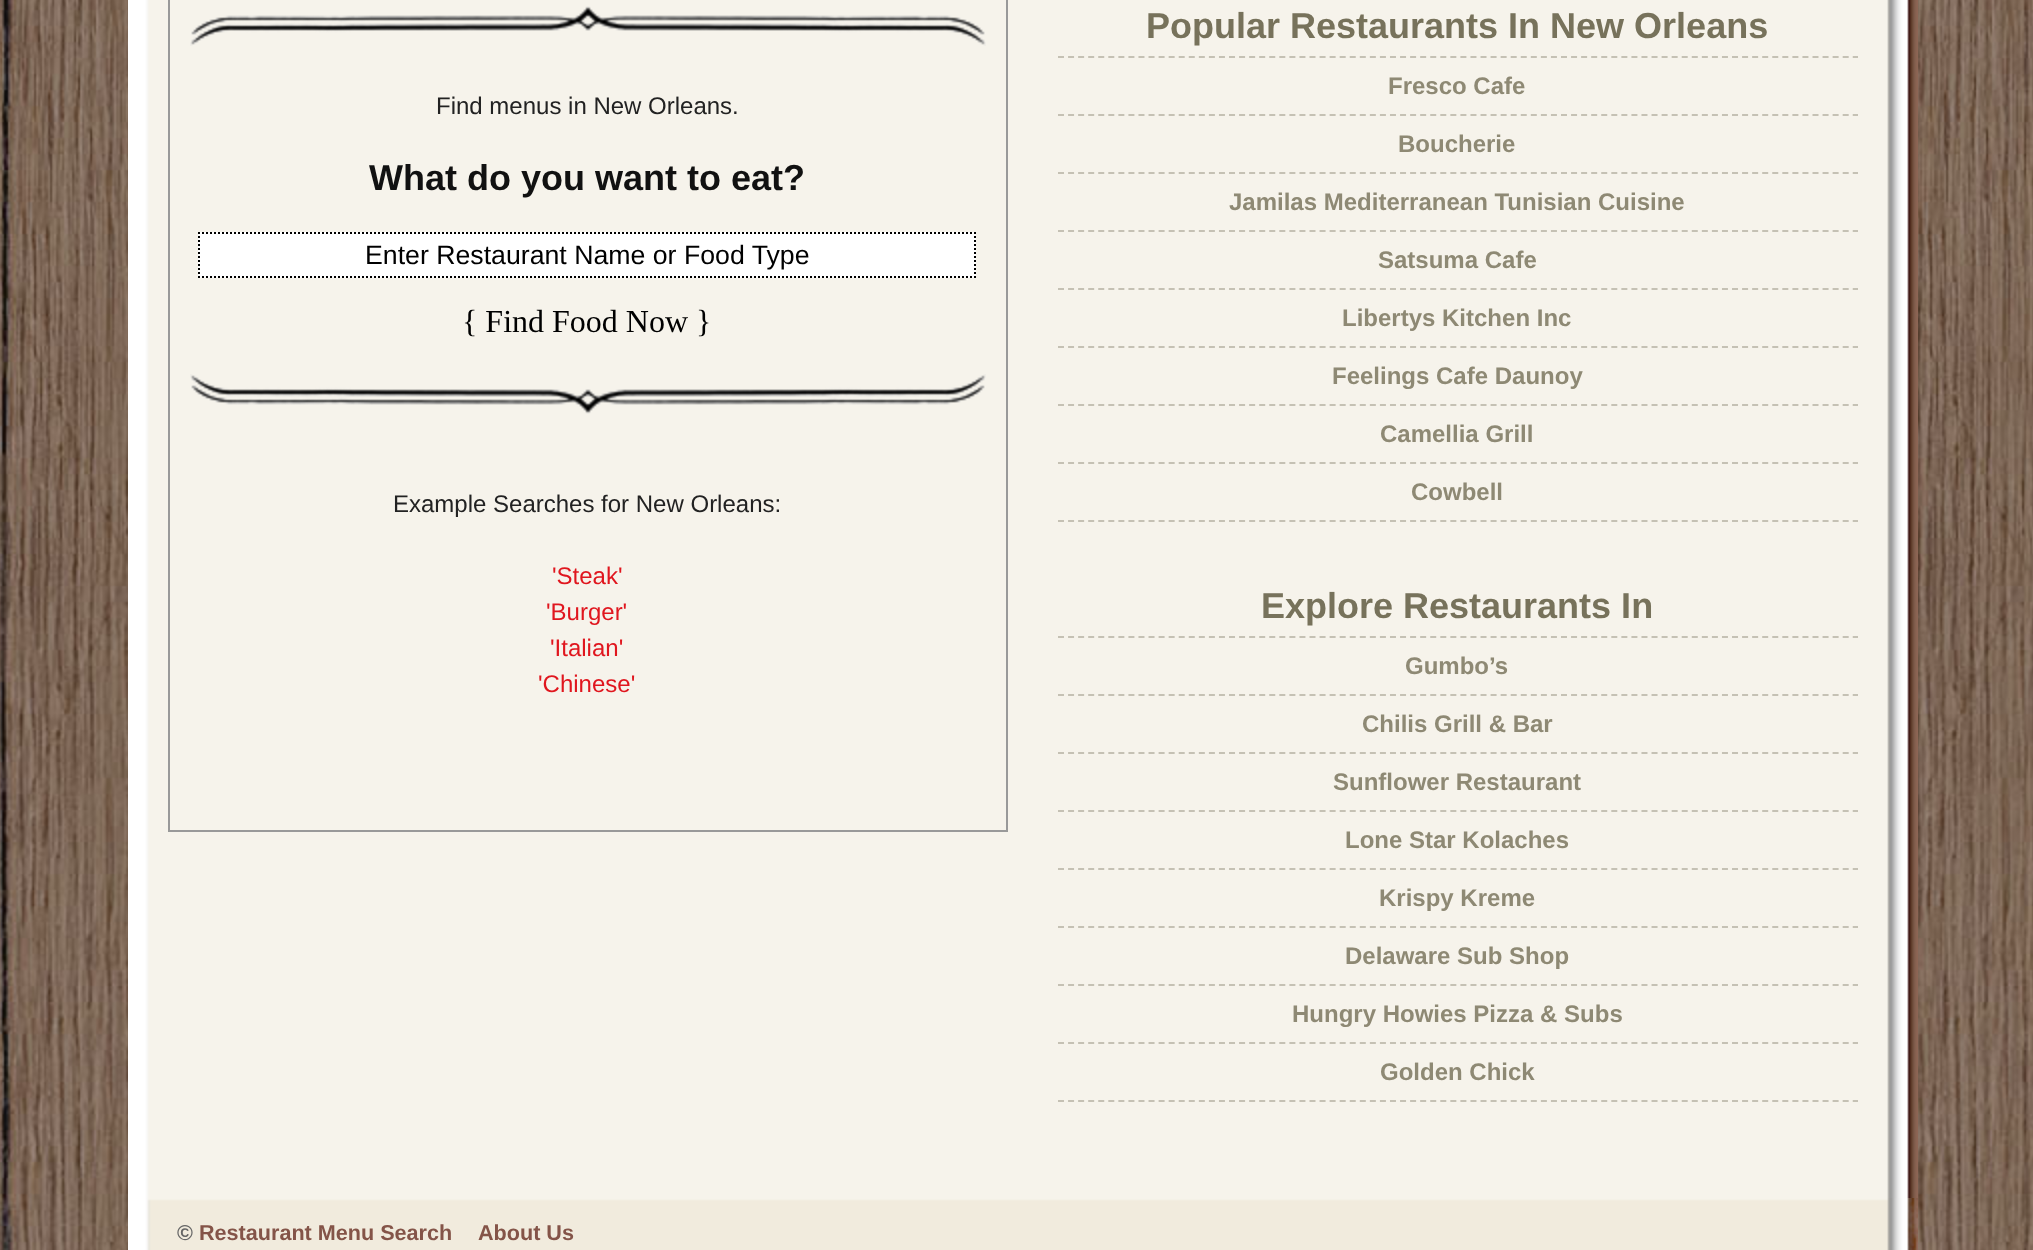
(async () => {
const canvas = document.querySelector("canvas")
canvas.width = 2033
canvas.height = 1250
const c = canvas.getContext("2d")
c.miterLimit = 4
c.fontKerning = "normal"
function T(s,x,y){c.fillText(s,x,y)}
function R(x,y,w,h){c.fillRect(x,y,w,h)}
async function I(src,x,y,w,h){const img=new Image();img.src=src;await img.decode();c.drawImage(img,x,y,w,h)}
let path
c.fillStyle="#fff"
R(0,0,2033,1250)
await I("1.png",0,0,2033,1250)
await I("2.png",128,0,1790,1198)
c.strokeStyle="#999"
c.lineWidth=2
c.strokeRect(169,-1,838,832)
await I("3.png",190,6,796,40)
c.font="24px Liberation Sans"
c.fillStyle="#222"
T("Find menus in New Orleans.",436,114)
c.font="bold 36px Liberation Sans"
c.fillStyle="#111"
T("What do you want to eat?",369,190)
c.fillStyle="#fff"
R(198,232,778,46)
path = new Path2D("M198 233h778")
c.strokeStyle="#000"
c.setLineDash([2,2])
c.stroke(path)
path = new Path2D("M975 232v46")
c.stroke(path)
path = new Path2D("M198 277h778")
c.stroke(path)
path = new Path2D("M199 232v46")
c.stroke(path)
c.font="26.7px Liberation Sans"
c.fillStyle="#000"
T("Enter Restaurant Name or Food Type",365,264)
c.font="32px Liberation Serif"
T("{ Find Food Now }",462,332)
await I("4.png",190,374,796,40)
c.font="24px Liberation Sans"
c.fillStyle="#222"
T("Example Searches for New Orleans:",393,512)
c.fillStyle="#e0161e"
T("'Steak'",552,584)
T("'Burger'",546,620)
T("'Italian'",550,656)
T("'Chinese'",538,692)
path = new Path2D("M1058 57h800")
c.strokeStyle="#c5c1b4"
c.setLineDash([6,4.06])
c.stroke(path)
c.font="bold 36px Liberation Sans"
c.fillStyle="#77725b"
T("Popular Restaurants In New Orleans",1146,38)
path = new Path2D("M1058 115h800")
c.stroke(path)
c.font="bold 24px Liberation Sans"
c.fillStyle="#8e8974"
T("Fresco Cafe",1388,94)
path = new Path2D("M1058 173h800")
c.stroke(path)
T("Boucherie",1398,152)
path = new Path2D("M1058 231h800")
c.stroke(path)
T("Jamilas Mediterranean Tunisian Cuisine",1229,210)
path = new Path2D("M1058 289h800")
c.stroke(path)
T("Satsuma Cafe",1378,268)
path = new Path2D("M1058 347h800")
c.stroke(path)
T("Libertys Kitchen Inc",1342,326)
path = new Path2D("M1058 405h800")
c.stroke(path)
T("Feelings Cafe Daunoy",1332,384)
path = new Path2D("M1058 463h800")
c.stroke(path)
T("Camellia Grill",1380,442)
path = new Path2D("M1058 521h800")
c.stroke(path)
T("Cowbell",1411,500)
path = new Path2D("M1058 637h800")
c.stroke(path)
c.font="bold 36px Liberation Sans"
c.fillStyle="#77725b"
T("Explore Restaurants In",1261,618)
path = new Path2D("M1058 695h800")
c.stroke(path)
c.font="bold 24px Liberation Sans"
c.fillStyle="#8e8974"
T("Gumbo’s",1405,674)
path = new Path2D("M1058 753h800")
c.stroke(path)
T("Chilis Grill & Bar",1362,732)
path = new Path2D("M1058 811h800")
c.stroke(path)
T("Sunflower Restaurant",1333,790)
path = new Path2D("M1058 869h800")
c.stroke(path)
T("Lone Star Kolaches",1345,848)
path = new Path2D("M1058 927h800")
c.stroke(path)
T("Krispy Kreme",1379,906)
path = new Path2D("M1058 985h800")
c.stroke(path)
T("Delaware Sub Shop",1345,964)
path = new Path2D("M1058 1043h800")
c.stroke(path)
T("Hungry Howies Pizza & Subs",1292,1022)
path = new Path2D("M1058 1101h800")
c.stroke(path)
T("Golden Chick",1380,1080)
await I("5.png",128,1198,1790,52)
c.font="bold 21.6px Liberation Sans"
c.fillStyle="#666"
T("©",177,1240)
c.fillStyle="#845448"
T("Restaurant Menu Search",199,1240)
T("About Us",478,1240)
})()
